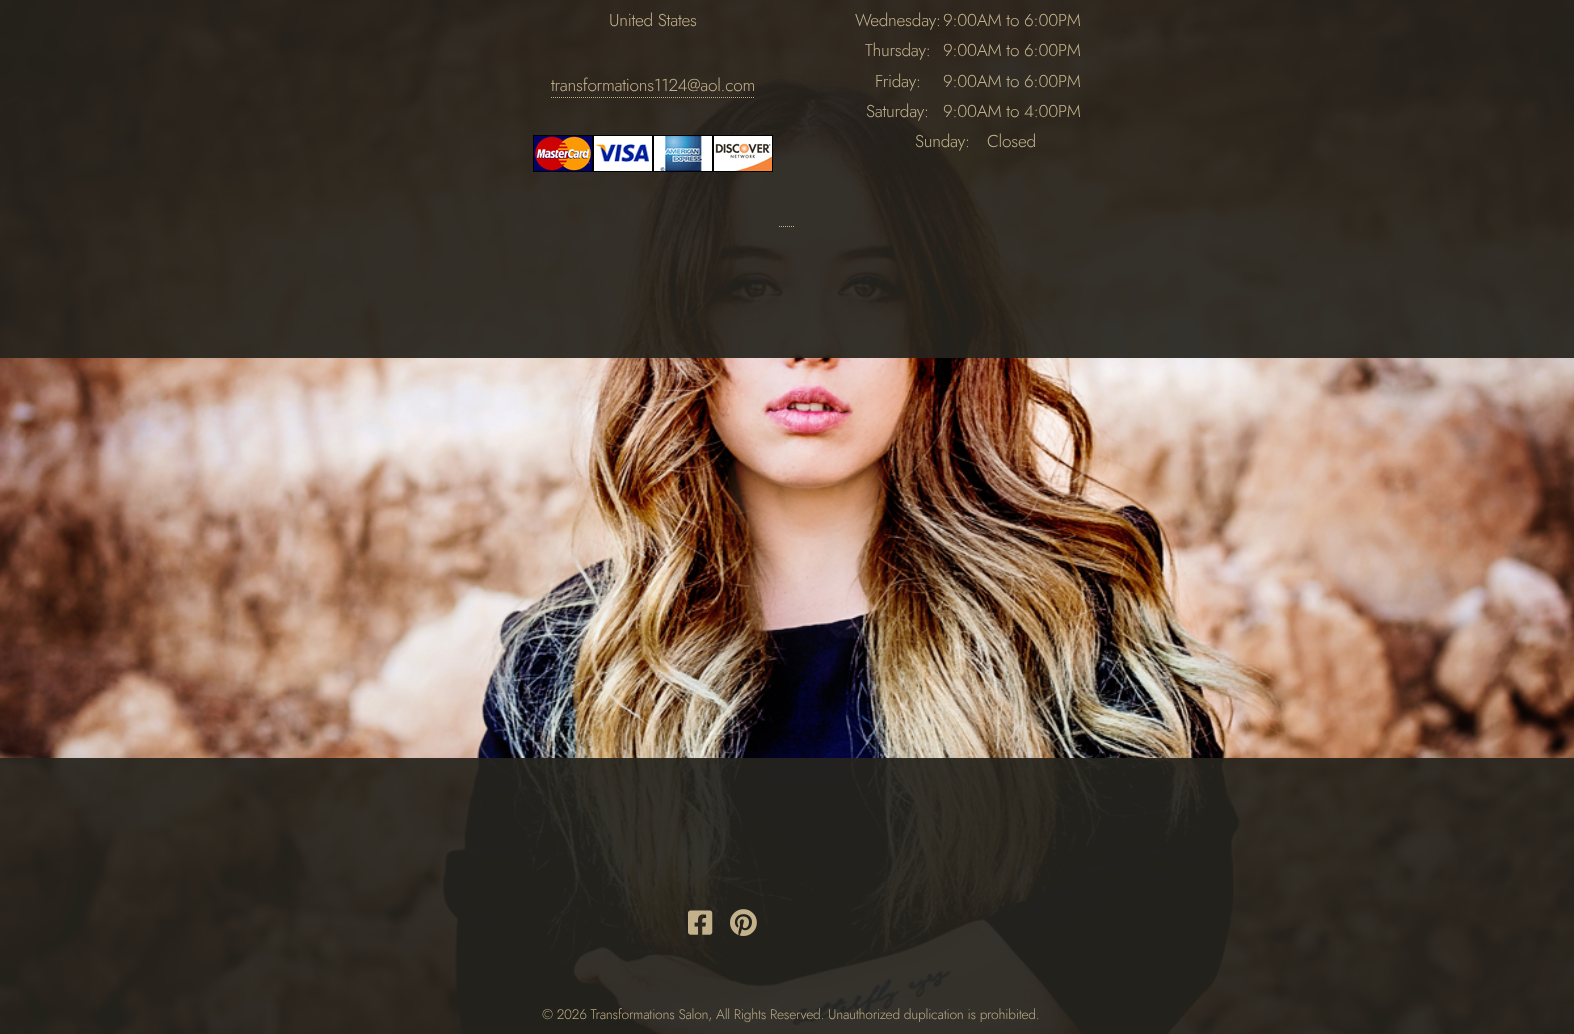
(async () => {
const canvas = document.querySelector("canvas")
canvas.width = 1574
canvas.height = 1034
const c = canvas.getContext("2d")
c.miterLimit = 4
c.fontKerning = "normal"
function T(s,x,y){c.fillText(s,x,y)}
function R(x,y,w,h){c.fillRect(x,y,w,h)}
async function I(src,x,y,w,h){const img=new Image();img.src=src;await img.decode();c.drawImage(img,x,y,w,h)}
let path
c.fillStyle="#fff"
R(0,0,1574,1034)
await I("1.png",0,0,1574,1034)
c.fillStyle="#26241ded"
R(0,0,1574,358)
c.letterSpacing="-0.25px"
c.font="300 17.25px Jost"
c.fillStyle="#c2b18a"
T("United States",609,26)
T("transformations1124@aol.com",551,91)
path = new Path2D("M551 97.5h204")
c.strokeStyle="#c2b18a"
c.setLineDash([1,1])
c.stroke(path)
await I("2.png",533,135,60,37)
await I("3.png",593,135,60,37)
await I("4.png",653,135,60,37)
await I("5.png",713,135,60,37)
T("Wednesday:",855,26)
T("9:00AM to 6:00PM",943,26)
T("Thursday:",865,56)
T("9:00AM to 6:00PM",943,56)
T("Friday:",875,87)
T("9:00AM to 6:00PM",943,87)
T("Saturday:",866,117)
T("9:00AM to 4:00PM",943,117)
T("Sunday:",915,147)
T("Closed",987,147)
path = new Path2D("M779 226.5h16")
c.stroke(path)
c.fillStyle="#26241ded"
R(0,758,1574,276)
await I("6.png",688,910,25,25)
await I("7.png",730,909,27,27)
c.font="300 13.85px Jost"
c.fillStyle="#b8a883"
T("© 2026 Transformations Salon, All Rights Reserved. Unauthorized duplication is prohibited.",542,1019)
})()
